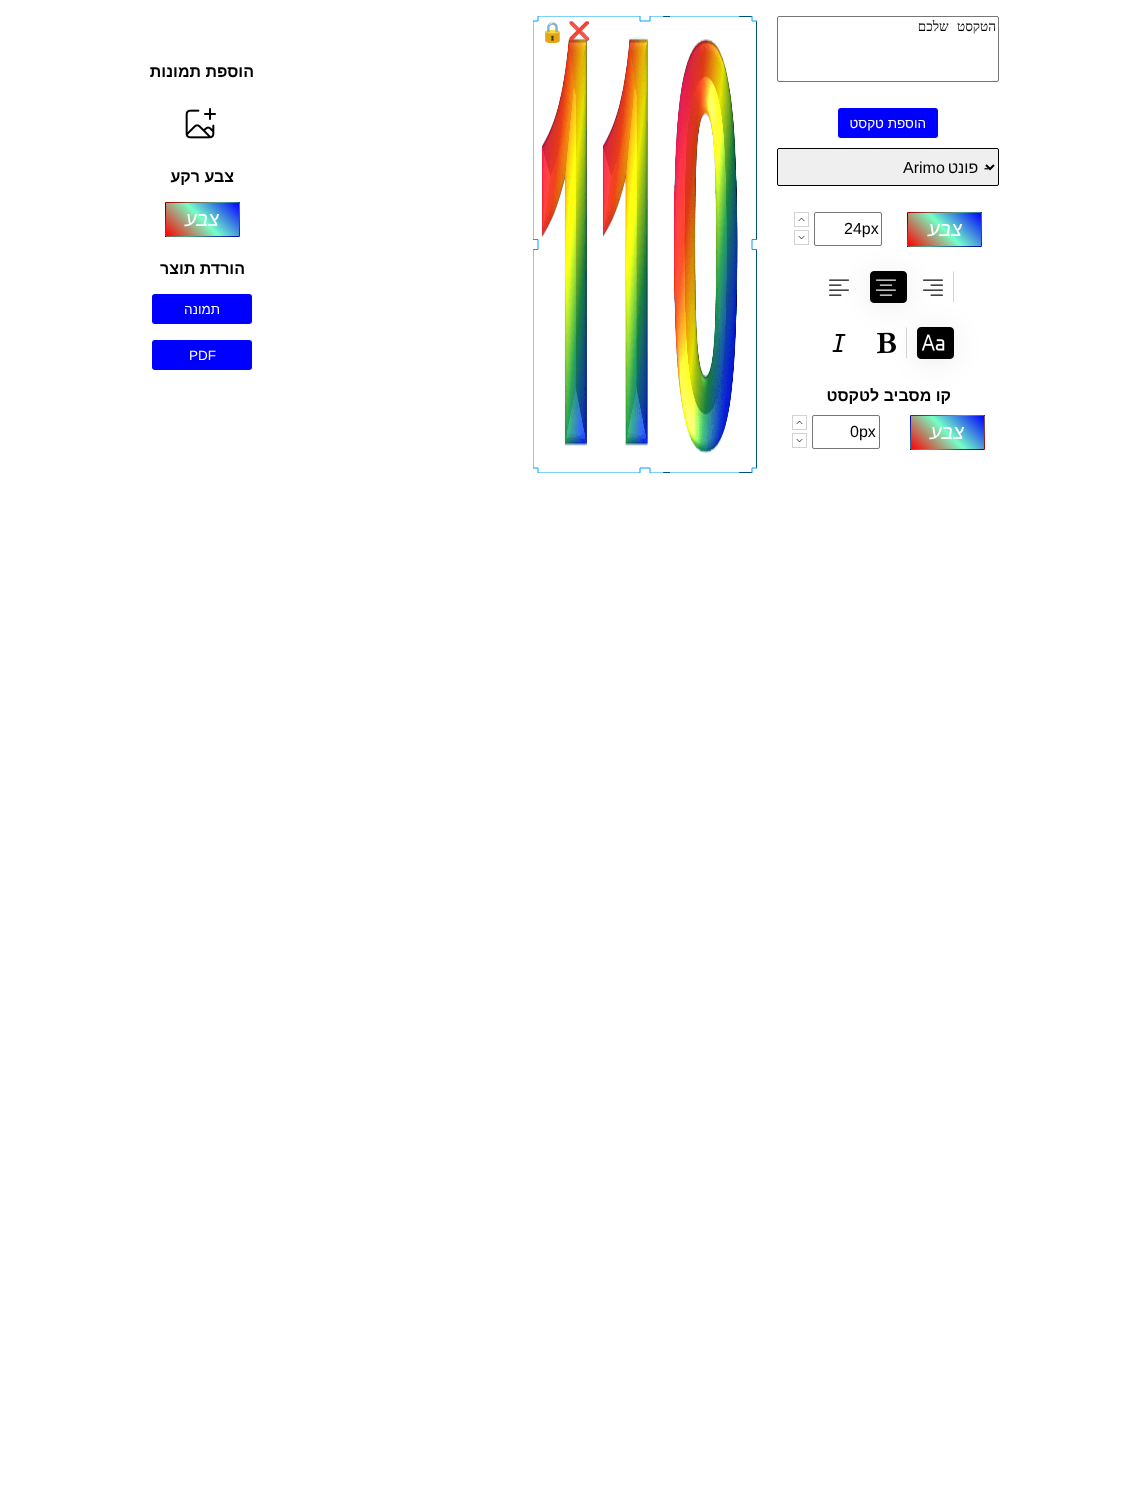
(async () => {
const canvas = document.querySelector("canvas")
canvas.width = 1142
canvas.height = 1507
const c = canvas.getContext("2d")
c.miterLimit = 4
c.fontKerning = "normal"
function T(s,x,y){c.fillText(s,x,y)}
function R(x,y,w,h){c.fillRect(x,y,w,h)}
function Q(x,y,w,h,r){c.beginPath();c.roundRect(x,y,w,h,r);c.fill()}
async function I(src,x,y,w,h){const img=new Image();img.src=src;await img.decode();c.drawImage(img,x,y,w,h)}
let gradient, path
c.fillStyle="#fff"
R(0,0,1142,1507)
c.beginPath()
c.roundRect(777.5,16.5,221,65,1.5)
c.strokeStyle="#767676"
c.stroke()
c.wordSpacing="5px"
c.direction="rtl"
c.font="13.5px Liberation Serif"
c.fillStyle="#000"
T("הטקסט שלכם",996,31)
c.fillStyle="#00f"
Q(838,108,100,30,3)
c.wordSpacing="0px"
c.font="13.5px Liberation Sans"
c.fillStyle="#fff"
T("הוספת טקסט",926,128)
c.fillStyle="#efefef"
c.beginPath()
c.roundRect(777.5,148.5,221,37,1.5)
c.fill()
c.strokeStyle="#000"
c.stroke()
path = new Path2D("M986 165l4 4l4-4")
c.lineWidth=2
c.stroke(path)
c.wordSpacing="1px"
c.font="16px Liberation Sans"
c.fillStyle="#000"
T("- פונט",989,173)
c.wordSpacing="0px"
c.direction="ltr"
T("Arimo",903,173)
gradient = c.createLinearGradient(845,223,898,170)
gradient.addColorStop(0,"#f00")
gradient.addColorStop(.5,"#75ffc6")
gradient.addColorStop(1,"#00f")
c.fillStyle = gradient
R(907,212,1,1)
gradient = c.createLinearGradient(918,223,971,170)
gradient.addColorStop(0,"#f00")
gradient.addColorStop(.5,"#75ffc6")
gradient.addColorStop(1,"#00f")
c.fillStyle = gradient
R(908,212,73,1)
gradient = c.createLinearGradient(991,223,1044,170)
gradient.addColorStop(0,"#f00")
gradient.addColorStop(.5,"#75ffc6")
gradient.addColorStop(1,"#00f")
c.fillStyle = gradient
R(981,212,1,1)
gradient = c.createLinearGradient(845,256,898,203)
gradient.addColorStop(0,"#f00")
gradient.addColorStop(.5,"#75ffc6")
gradient.addColorStop(1,"#00f")
c.fillStyle = gradient
R(907,213,1,33)
gradient = c.createLinearGradient(918,256,971,203)
gradient.addColorStop(0,"#f00")
gradient.addColorStop(.5,"#75ffc6")
gradient.addColorStop(1,"#00f")
c.fillStyle = gradient
R(908,213,73,33)
gradient = c.createLinearGradient(991,256,1044,203)
gradient.addColorStop(0,"#f00")
gradient.addColorStop(.5,"#75ffc6")
gradient.addColorStop(1,"#00f")
c.fillStyle = gradient
R(981,213,1,33)
gradient = c.createLinearGradient(845,289,898,236)
gradient.addColorStop(0,"#f00")
gradient.addColorStop(.5,"#75ffc6")
gradient.addColorStop(1,"#00f")
c.fillStyle = gradient
R(907,246,1,1)
gradient = c.createLinearGradient(918,289,971,236)
gradient.addColorStop(0,"#f00")
gradient.addColorStop(.5,"#75ffc6")
gradient.addColorStop(1,"#00f")
c.fillStyle = gradient
R(908,246,73,1)
gradient = c.createLinearGradient(991,289,1044,236)
gradient.addColorStop(0,"#f00")
gradient.addColorStop(.5,"#75ffc6")
gradient.addColorStop(1,"#00f")
c.fillStyle = gradient
R(981,246,1,1)
c.strokeStyle="#00000054"
c.lineWidth=1
c.strokeRect(907.5,212.5,74,34)
c.direction="rtl"
c.font="italic 20px Liberation Sans"
c.fillStyle="#fff"
T("צבע",962,236)
c.beginPath()
c.roundRect(814.5,212.5,67,33,1.5)
c.strokeStyle="#767676"
c.stroke()
c.direction="ltr"
c.font="16px Liberation Sans"
c.fillStyle="#000"
T("24px",844,234)
c.strokeStyle="#d3d3d3"
c.strokeRect(794.5,212.5,14,14)
await I("1.png",798,218,7,4)
c.strokeRect(794.5,230.5,14,14)
await I("2.png",798,235,7,4)
await I("4.png",923,279,20,17)
c.fillStyle="#00000014"
c.filter="blur(14px)"
c.beginPath()
c.roundRect(870,274,37,32,4)
c.fill()
c.filter="none"
c.fillStyle="#000"
c.beginPath()
c.roundRect(870.5,271.5,36,31,3.5)
c.fill()
c.strokeStyle="#000"
c.stroke()
await I("3.png",876,279,20,17)
c.fillStyle="#d3d3d3"
path = new Path2D("M954 271v32l-1-1v-30z")
c.fill(path)
await I("5.png",829,279,20,17)
c.fillStyle="#00000014"
c.filter="blur(14px)"
c.beginPath()
c.roundRect(917,330,37,32,4)
c.fill()
c.filter="none"
c.fillStyle="#000"
c.beginPath()
c.roundRect(917.5,327.5,36,31,3.5)
c.fill()
c.stroke()
await I("6.png",921,334,24,17)
c.fillStyle="#d3d3d3"
path = new Path2D("M907 327v32l-1-1v-30z")
c.fill(path)
await I("7.png",877,332,19,22)
await I("8.png",832,334,14,18)
c.direction="rtl"
c.font="bold 16px Liberation Sans"
c.fillStyle="#000"
T("קו מסביב לטקסט",951,401)
gradient = c.createLinearGradient(848,426,901,373)
gradient.addColorStop(0,"#f00")
gradient.addColorStop(.5,"#75ffc6")
gradient.addColorStop(1,"#00f")
c.fillStyle = gradient
R(910,415,1,1)
gradient = c.createLinearGradient(921,426,974,373)
gradient.addColorStop(0,"#f00")
gradient.addColorStop(.5,"#75ffc6")
gradient.addColorStop(1,"#00f")
c.fillStyle = gradient
R(911,415,73,1)
gradient = c.createLinearGradient(994,426,1047,373)
gradient.addColorStop(0,"#f00")
gradient.addColorStop(.5,"#75ffc6")
gradient.addColorStop(1,"#00f")
c.fillStyle = gradient
R(984,415,1,1)
gradient = c.createLinearGradient(848,459,901,406)
gradient.addColorStop(0,"#f00")
gradient.addColorStop(.5,"#75ffc6")
gradient.addColorStop(1,"#00f")
c.fillStyle = gradient
R(910,416,1,33)
gradient = c.createLinearGradient(921,459,974,406)
gradient.addColorStop(0,"#f00")
gradient.addColorStop(.5,"#75ffc6")
gradient.addColorStop(1,"#00f")
c.fillStyle = gradient
R(911,416,73,33)
gradient = c.createLinearGradient(994,459,1047,406)
gradient.addColorStop(0,"#f00")
gradient.addColorStop(.5,"#75ffc6")
gradient.addColorStop(1,"#00f")
c.fillStyle = gradient
R(984,416,1,33)
gradient = c.createLinearGradient(848,492,901,439)
gradient.addColorStop(0,"#f00")
gradient.addColorStop(.5,"#75ffc6")
gradient.addColorStop(1,"#00f")
c.fillStyle = gradient
R(910,449,1,1)
gradient = c.createLinearGradient(921,492,974,439)
gradient.addColorStop(0,"#f00")
gradient.addColorStop(.5,"#75ffc6")
gradient.addColorStop(1,"#00f")
c.fillStyle = gradient
R(911,449,73,1)
gradient = c.createLinearGradient(994,492,1047,439)
gradient.addColorStop(0,"#f00")
gradient.addColorStop(.5,"#75ffc6")
gradient.addColorStop(1,"#00f")
c.fillStyle = gradient
R(984,449,1,1)
c.strokeStyle="#00000054"
c.strokeRect(910.5,415.5,74,34)
c.font="italic 20px Liberation Sans"
c.fillStyle="#fff"
T("צבע",964,439)
c.beginPath()
c.roundRect(812.5,415.5,67,33,1.5)
c.strokeStyle="#767676"
c.stroke()
c.direction="ltr"
c.font="16px Liberation Sans"
c.fillStyle="#000"
T("0px",850,437)
c.strokeStyle="#d3d3d3"
c.strokeRect(792.5,415.5,14,14)
await I("1.png",796,421,7,4)
c.strokeRect(792.5,433.5,14,14)
await I("2.png",796,438,7,4)
await I("9.png",533,16,224,457)
c.direction="rtl"
c.font="bold 16px Liberation Sans"
T("הוספת תמונות",254,77)
await I("10.png",185,108,31,31)
T("צבע רקע",234,182)
gradient = c.createLinearGradient(103,213,156,160)
gradient.addColorStop(0,"#f00")
gradient.addColorStop(.5,"#75ffc6")
gradient.addColorStop(1,"#00f")
c.fillStyle = gradient
R(165,202,1,1)
gradient = c.createLinearGradient(176,213,229,160)
gradient.addColorStop(0,"#f00")
gradient.addColorStop(.5,"#75ffc6")
gradient.addColorStop(1,"#00f")
c.fillStyle = gradient
R(166,202,73,1)
gradient = c.createLinearGradient(249,213,302,160)
gradient.addColorStop(0,"#f00")
gradient.addColorStop(.5,"#75ffc6")
gradient.addColorStop(1,"#00f")
c.fillStyle = gradient
R(239,202,1,1)
gradient = c.createLinearGradient(103,246,156,193)
gradient.addColorStop(0,"#f00")
gradient.addColorStop(.5,"#75ffc6")
gradient.addColorStop(1,"#00f")
c.fillStyle = gradient
R(165,203,1,33)
gradient = c.createLinearGradient(176,246,229,193)
gradient.addColorStop(0,"#f00")
gradient.addColorStop(.5,"#75ffc6")
gradient.addColorStop(1,"#00f")
c.fillStyle = gradient
R(166,203,73,33)
gradient = c.createLinearGradient(249,246,302,193)
gradient.addColorStop(0,"#f00")
gradient.addColorStop(.5,"#75ffc6")
gradient.addColorStop(1,"#00f")
c.fillStyle = gradient
R(239,203,1,33)
gradient = c.createLinearGradient(103,279,156,226)
gradient.addColorStop(0,"#f00")
gradient.addColorStop(.5,"#75ffc6")
gradient.addColorStop(1,"#00f")
c.fillStyle = gradient
R(165,236,1,1)
gradient = c.createLinearGradient(176,279,229,226)
gradient.addColorStop(0,"#f00")
gradient.addColorStop(.5,"#75ffc6")
gradient.addColorStop(1,"#00f")
c.fillStyle = gradient
R(166,236,73,1)
gradient = c.createLinearGradient(249,279,302,226)
gradient.addColorStop(0,"#f00")
gradient.addColorStop(.5,"#75ffc6")
gradient.addColorStop(1,"#00f")
c.fillStyle = gradient
R(239,236,1,1)
c.strokeStyle="#00000054"
c.strokeRect(165.5,202.5,74,34)
c.font="italic 20px Liberation Sans"
c.fillStyle="#fff"
T("צבע",219,226)
c.font="bold 16px Liberation Sans"
c.fillStyle="#000"
T("הורדת תוצר",245,274)
c.fillStyle="#00f"
Q(152,294,100,30,3)
c.font="13.5px Liberation Sans"
c.fillStyle="#fff"
T("תמונה",220,314)
c.fillStyle="#00f"
Q(152,340,100,30,3)
c.direction="ltr"
c.fillStyle="#fff"
T("PDF",189,360)
})()
